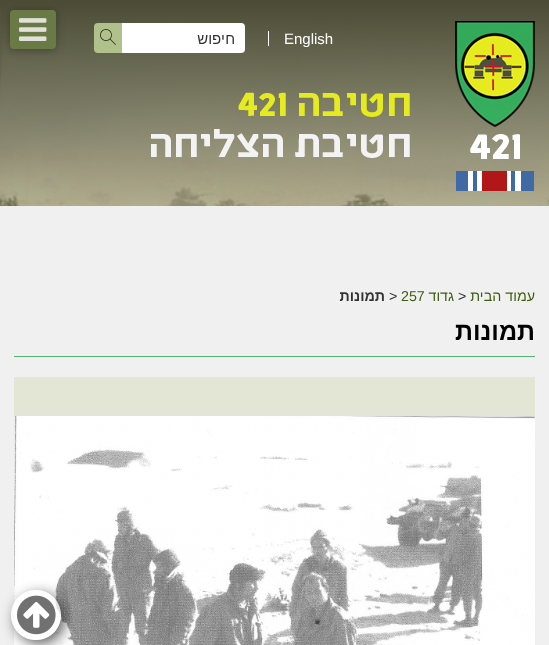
(async () => {
const canvas = document.querySelector("canvas")
canvas.width = 549
canvas.height = 645
const c = canvas.getContext("2d")
c.miterLimit = 4
c.fontKerning = "normal"
function T(s,x,y){c.fillText(s,x,y)}
function R(x,y,w,h){c.fillRect(x,y,w,h)}
function Q(x,y,w,h,r){c.beginPath();c.roundRect(x,y,w,h,r);c.fill()}
async function I(src,x,y,w,h){const img=new Image();img.src=src;await img.decode();c.drawImage(img,x,y,w,h)}
let path
c.fillStyle="#f0f0f0"
R(0,0,549,645)
await I("1.png",0,0,549,206)
await I("2.png",455,21,80,170)
c.fillStyle="#fff"
R(268,31,1,15)
c.font="15px Arimo"
T("English",284,44)
c.beginPath()
c.roundRect(122,23,123,30,[0,4,4,0])
c.fill()
c.direction="rtl"
c.fillStyle="#333"
T("חיפוש",235,44)
c.fillStyle="#b1c18c"
c.beginPath()
c.roundRect(94,23,28,30,[4,0,0,4])
c.fill()
await I("3.png",100,29,16,16)
await I("4.png",151,92,259,66)
c.fillStyle="#0000004d"
c.filter="blur(4px)"
c.beginPath()
c.roundRect(10,11,46,39,4)
c.fill()
c.filter="none"
c.fillStyle="#6a7a46"
Q(10,10,46,39,4)
await I("5.png",19,18,28,23)
c.font="14.25px Arimo"
c.fillStyle="#3e5d11"
T("עמוד הבית",535,301)
c.direction="ltr"
c.fillStyle="#333"
T(">",458,301)
c.direction="rtl"
c.fillStyle="#3e5d11"
T("גדוד",454,301)
c.direction="ltr"
T("257",401,301)
c.fillStyle="#333"
T(">",389,301)
c.direction="rtl"
c.font="bold 14.25px Arimo"
T("תמונות",385,301)
c.fillStyle="#54b576"
R(14,356,521,1)
c.font="bold 25px Arimo"
c.fillStyle="#000"
T("תמונות",535,340)
c.fillStyle="#e3e5d5"
R(14,377,521,39)
await I("6.png",14,416,521,229)
c.save()
path = new Path2D("M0 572h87v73h-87zm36 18c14 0 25 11 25 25c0 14-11 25-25 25c-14 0-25-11-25-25c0-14 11-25 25-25z")
c.clip(path,"evenodd")
c.fillStyle="#000000a1"
c.filter="blur(7px)"
c.beginPath()
c.roundRect(15,594,50,50,25)
c.fill()
c.filter="none"
c.restore()
c.fillStyle="#ffffffb3"
c.beginPath()
c.arc(36,615,25,0,7)
c.fill()
await I("7.png",17,595,39,40)
})()
